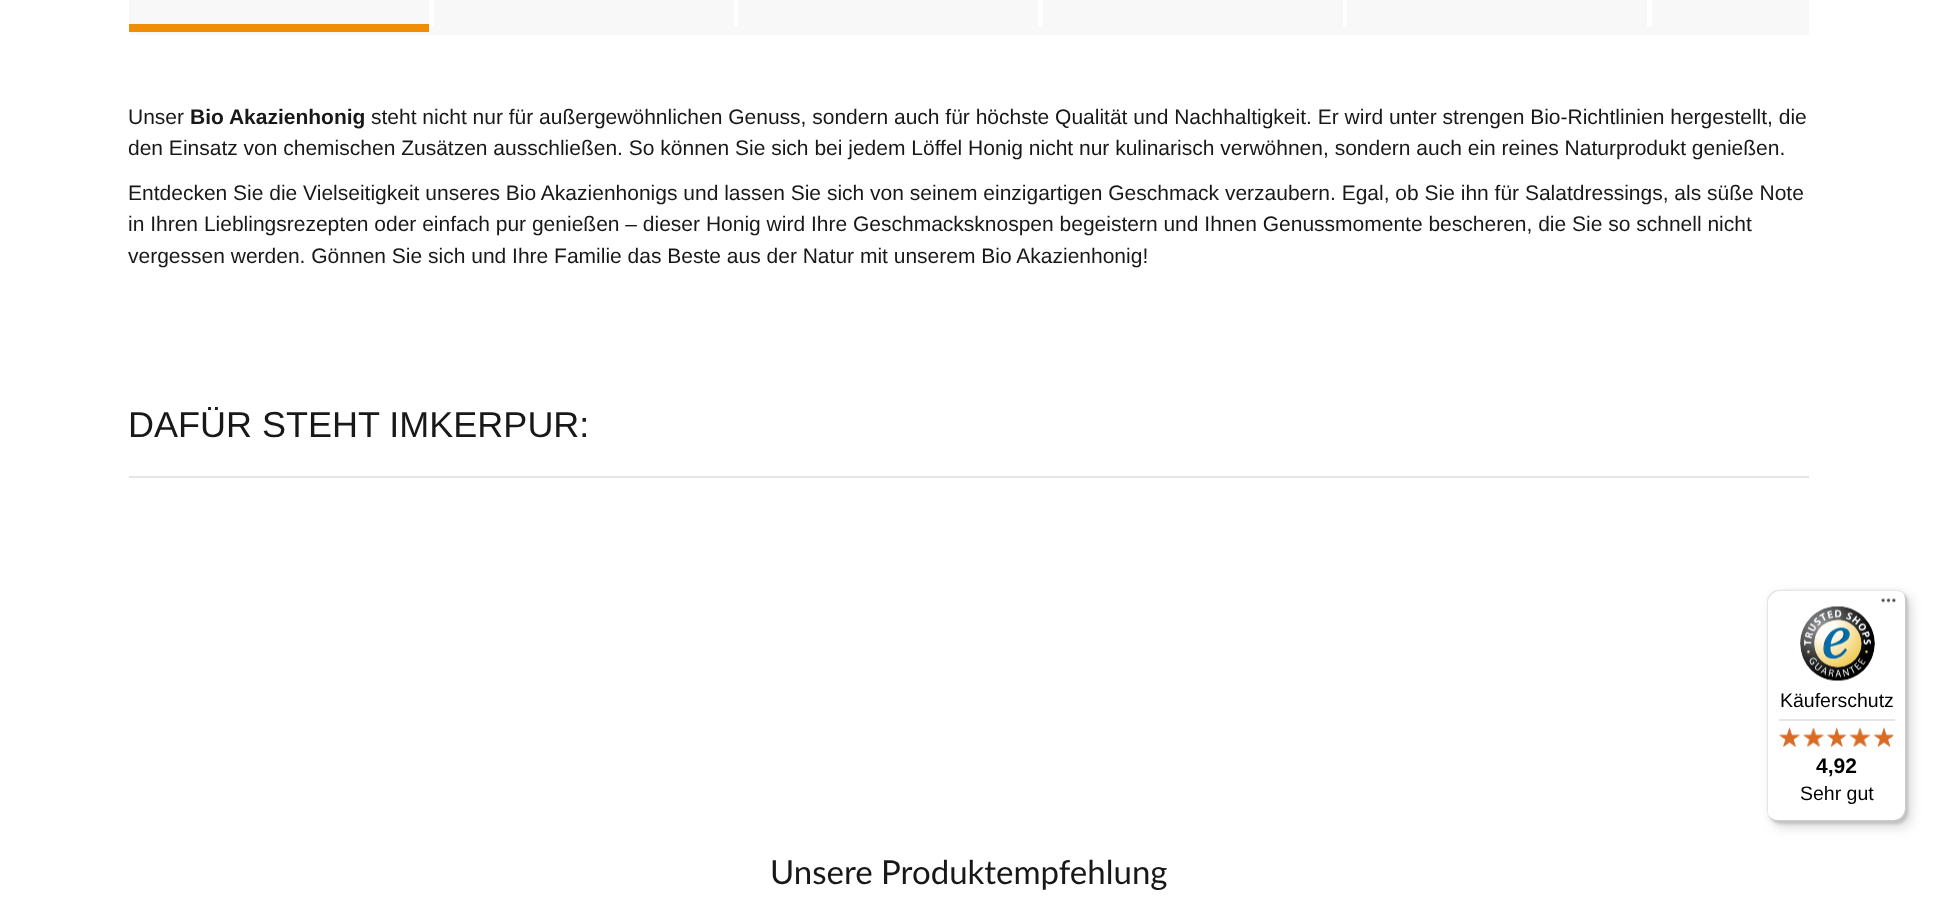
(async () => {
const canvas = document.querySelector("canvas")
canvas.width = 1936
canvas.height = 902
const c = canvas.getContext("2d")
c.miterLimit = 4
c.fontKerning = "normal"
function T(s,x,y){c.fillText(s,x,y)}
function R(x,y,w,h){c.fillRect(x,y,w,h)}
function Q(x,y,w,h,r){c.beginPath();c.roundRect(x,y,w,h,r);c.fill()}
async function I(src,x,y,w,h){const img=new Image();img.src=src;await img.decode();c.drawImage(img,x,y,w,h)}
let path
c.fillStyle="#fff"
R(0,0,1936,902)
c.fillStyle="#f8f8f8"
R(129,27,1680,8)
R(129,0,300,24)
c.fillStyle="#ef8d06"
R(129,24,300,8)
c.fillStyle="#f8f8f8"
R(434,0,300,27)
R(738,0,300,27)
R(1043,0,300,27)
R(1347,0,300,27)
R(1652,0,157,27)
c.font="21px Liberation Sans"
c.fillStyle="#181819"
T("Unser",128,124)
c.font="bold 21px Liberation Sans"
T("Bio Akazienhonig",190,124)
c.font="21px Liberation Sans"
T("steht nicht nur für außergewöhnlichen Genuss, sondern auch für höchste Qualität und Nachhaltigkeit. Er wird unter strengen Bio-Richtlinien hergestellt, die",371,124)
T("den Einsatz von chemischen Zusätzen ausschließen. So können Sie sich bei jedem Löffel Honig nicht nur kulinarisch verwöhnen, sondern auch ein reines Naturprodukt genießen.",128,155)
T("Entdecken Sie die Vielseitigkeit unseres Bio Akazienhonigs und lassen Sie sich von seinem einzigartigen Geschmack verzaubern. Egal, ob Sie ihn für Salatdressings, als süße Note",128,200)
T("in Ihren Lieblingsrezepten oder einfach pur genießen – dieser Honig wird Ihre Geschmacksknospen begeistern und Ihnen Genussmomente bescheren, die Sie so schnell nicht",128,231)
T("vergessen werden. Gönnen Sie sich und Ihre Familie das Beste aus der Natur mit unserem Bio Akazienhonig!",128,263)
c.font="36px Liberation Sans"
T("DAFÜR STEHT IMKERPUR:",128,437)
c.fillStyle="#e6e6e6"
R(129,476,1680,2)
c.font="33px Lato"
c.fillStyle="#181819"
T("Unsere Produktempfehlung",770,884)
c.fillStyle="#00000026"
c.filter="blur(6px)"
c.beginPath()
c.roundRect(1772,594,139,233,12)
c.fill()
c.filter="none"
c.filter="blur(1.5px)"
c.beginPath()
c.roundRect(1769,591,139,233,12)
c.fill()
c.filter="none"
c.fillStyle="#fff"
Q(1767,590,140,232,12)
c.fillStyle="#e5e5e5"
path = new Path2D("M1780 591h116c3 0 5 1 7 2c-2-2-5-3-8-3h-116c-7 0-12 5-12 12v208c0 3 1 5 3 7c-1-1-2-3-2-5v-209c0-7 6-12 12-12z")
c.fill(path)
c.fillStyle="#00000033"
path = new Path2D("M1768 815c2 4 6 7 11 7h116c7 0 12-5 12-12v-208c0-4-2-7-4-9c1 2 2 4 2 7v208c0 7-5 12-12 12h-115c-4 0-8-2-10-5z")
c.fill(path)
c.fillStyle="#32323233"
path = new Path2D("M1771 819c2 2 5 3 8 3h116c7 0 12-5 12-12v-208c0-4-2-7-4-9c2 2 3 5 3 8v208c0 7-6 12-12 12h-116c-3 0-5-1-7-2z")
c.fill(path)
c.fillStyle="#ffffff4d"
path = new Path2D("M1770 818c2 2 5 4 9 4h116c7 0 12-5 12-12v-208c0-4-2-7-4-9c2 2 3 5 3 8v208c0 7-6 12-12 12h-116c-3 0-6-1-8-3z")
c.fill(path)
await I("1.png",1881,598,15,5)
await I("2.png",1800,606,75,75)
c.font="19.5px Liberation Sans"
c.fillStyle="#000"
T("Käuferschutz",1780,707)
c.fillStyle="#e5e5e5"
R(1779,719,116,2)
await I("3.png",1779,727,21,20)
await I("4.png",1803,728,21,19)
await I("5.png",1827,727,19,20)
await I("6.png",1850,728,20,19)
await I("7.png",1874,727,20,20)
await I("8.png",1779,727,21,20)
await I("9.png",1803,727,21,20)
await I("10.png",1827,727,19,20)
await I("11.png",1849,727,22,20)
await I("12.png",1874,727,19,20)
c.font="bold 21px Liberation Sans"
c.fillStyle="#000"
T("4,92",1816,773)
c.font="19.5px Liberation Sans"
T("Sehr gut",1800,800)
})()
